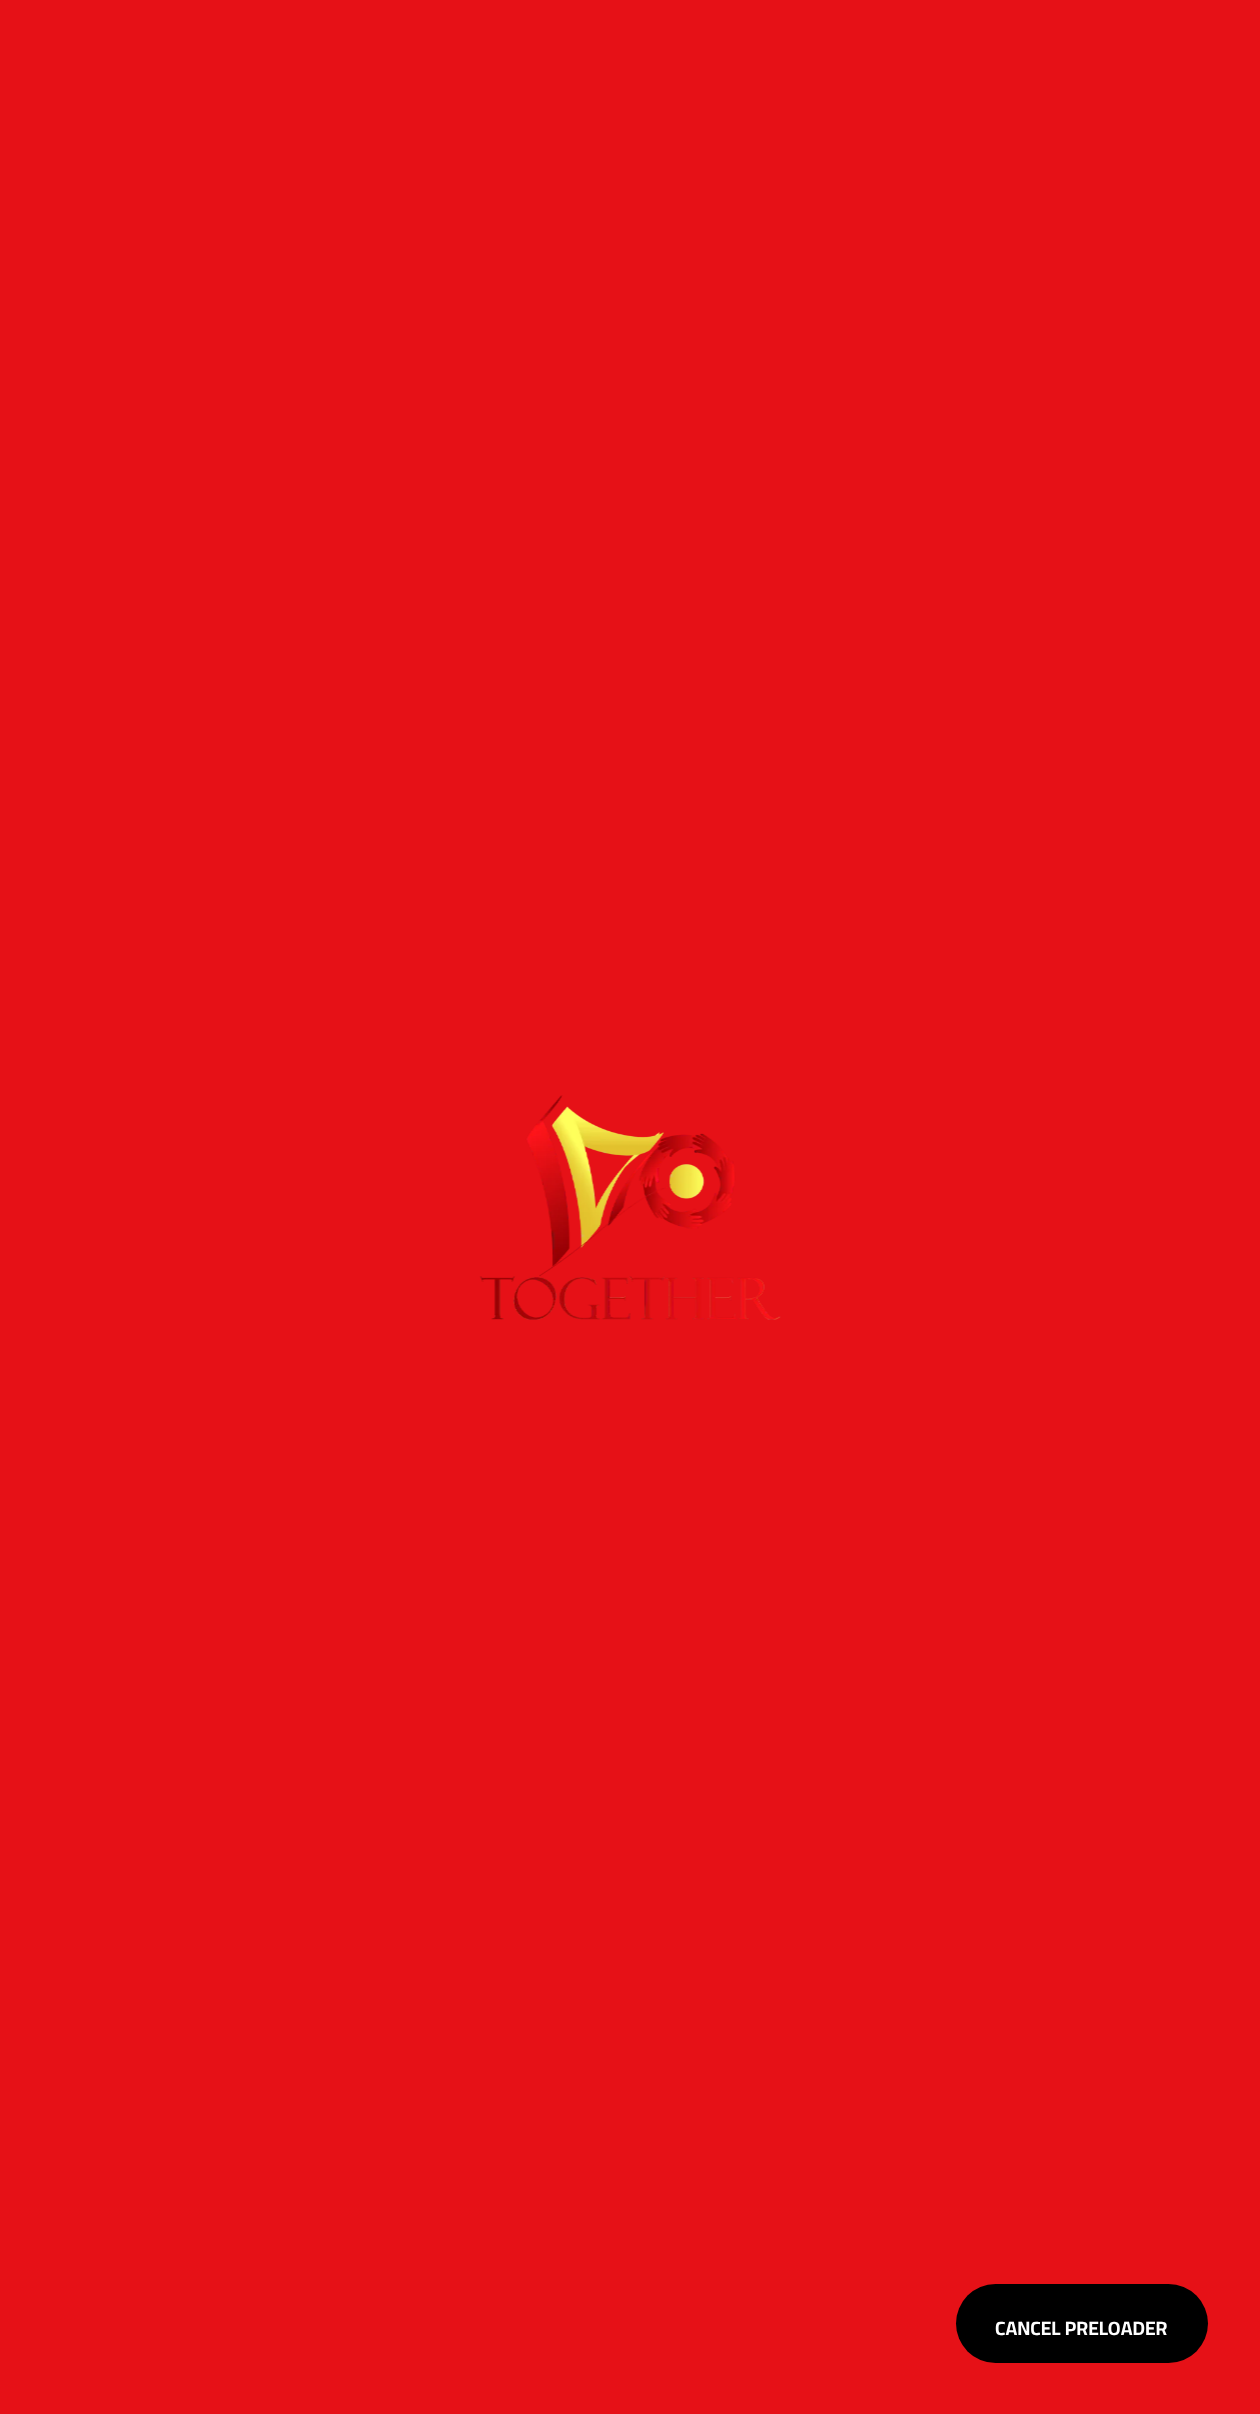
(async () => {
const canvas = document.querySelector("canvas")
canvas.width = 1260
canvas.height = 2414
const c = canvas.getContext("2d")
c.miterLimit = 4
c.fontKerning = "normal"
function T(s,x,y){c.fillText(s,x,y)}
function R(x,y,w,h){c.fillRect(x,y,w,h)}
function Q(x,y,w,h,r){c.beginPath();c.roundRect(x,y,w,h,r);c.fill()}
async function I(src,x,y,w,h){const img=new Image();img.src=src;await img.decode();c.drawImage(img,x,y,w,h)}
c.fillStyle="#e61117"
R(0,0,1260,2414)
await I("1.png",479,1095,302,225)
c.fillStyle="#000"
Q(956,2284,252,79,39.5)
c.font="bold 19.25px Cairo"
c.fillStyle="#fff"
T("CANCEL PRELOADER",995,2335)
})()
